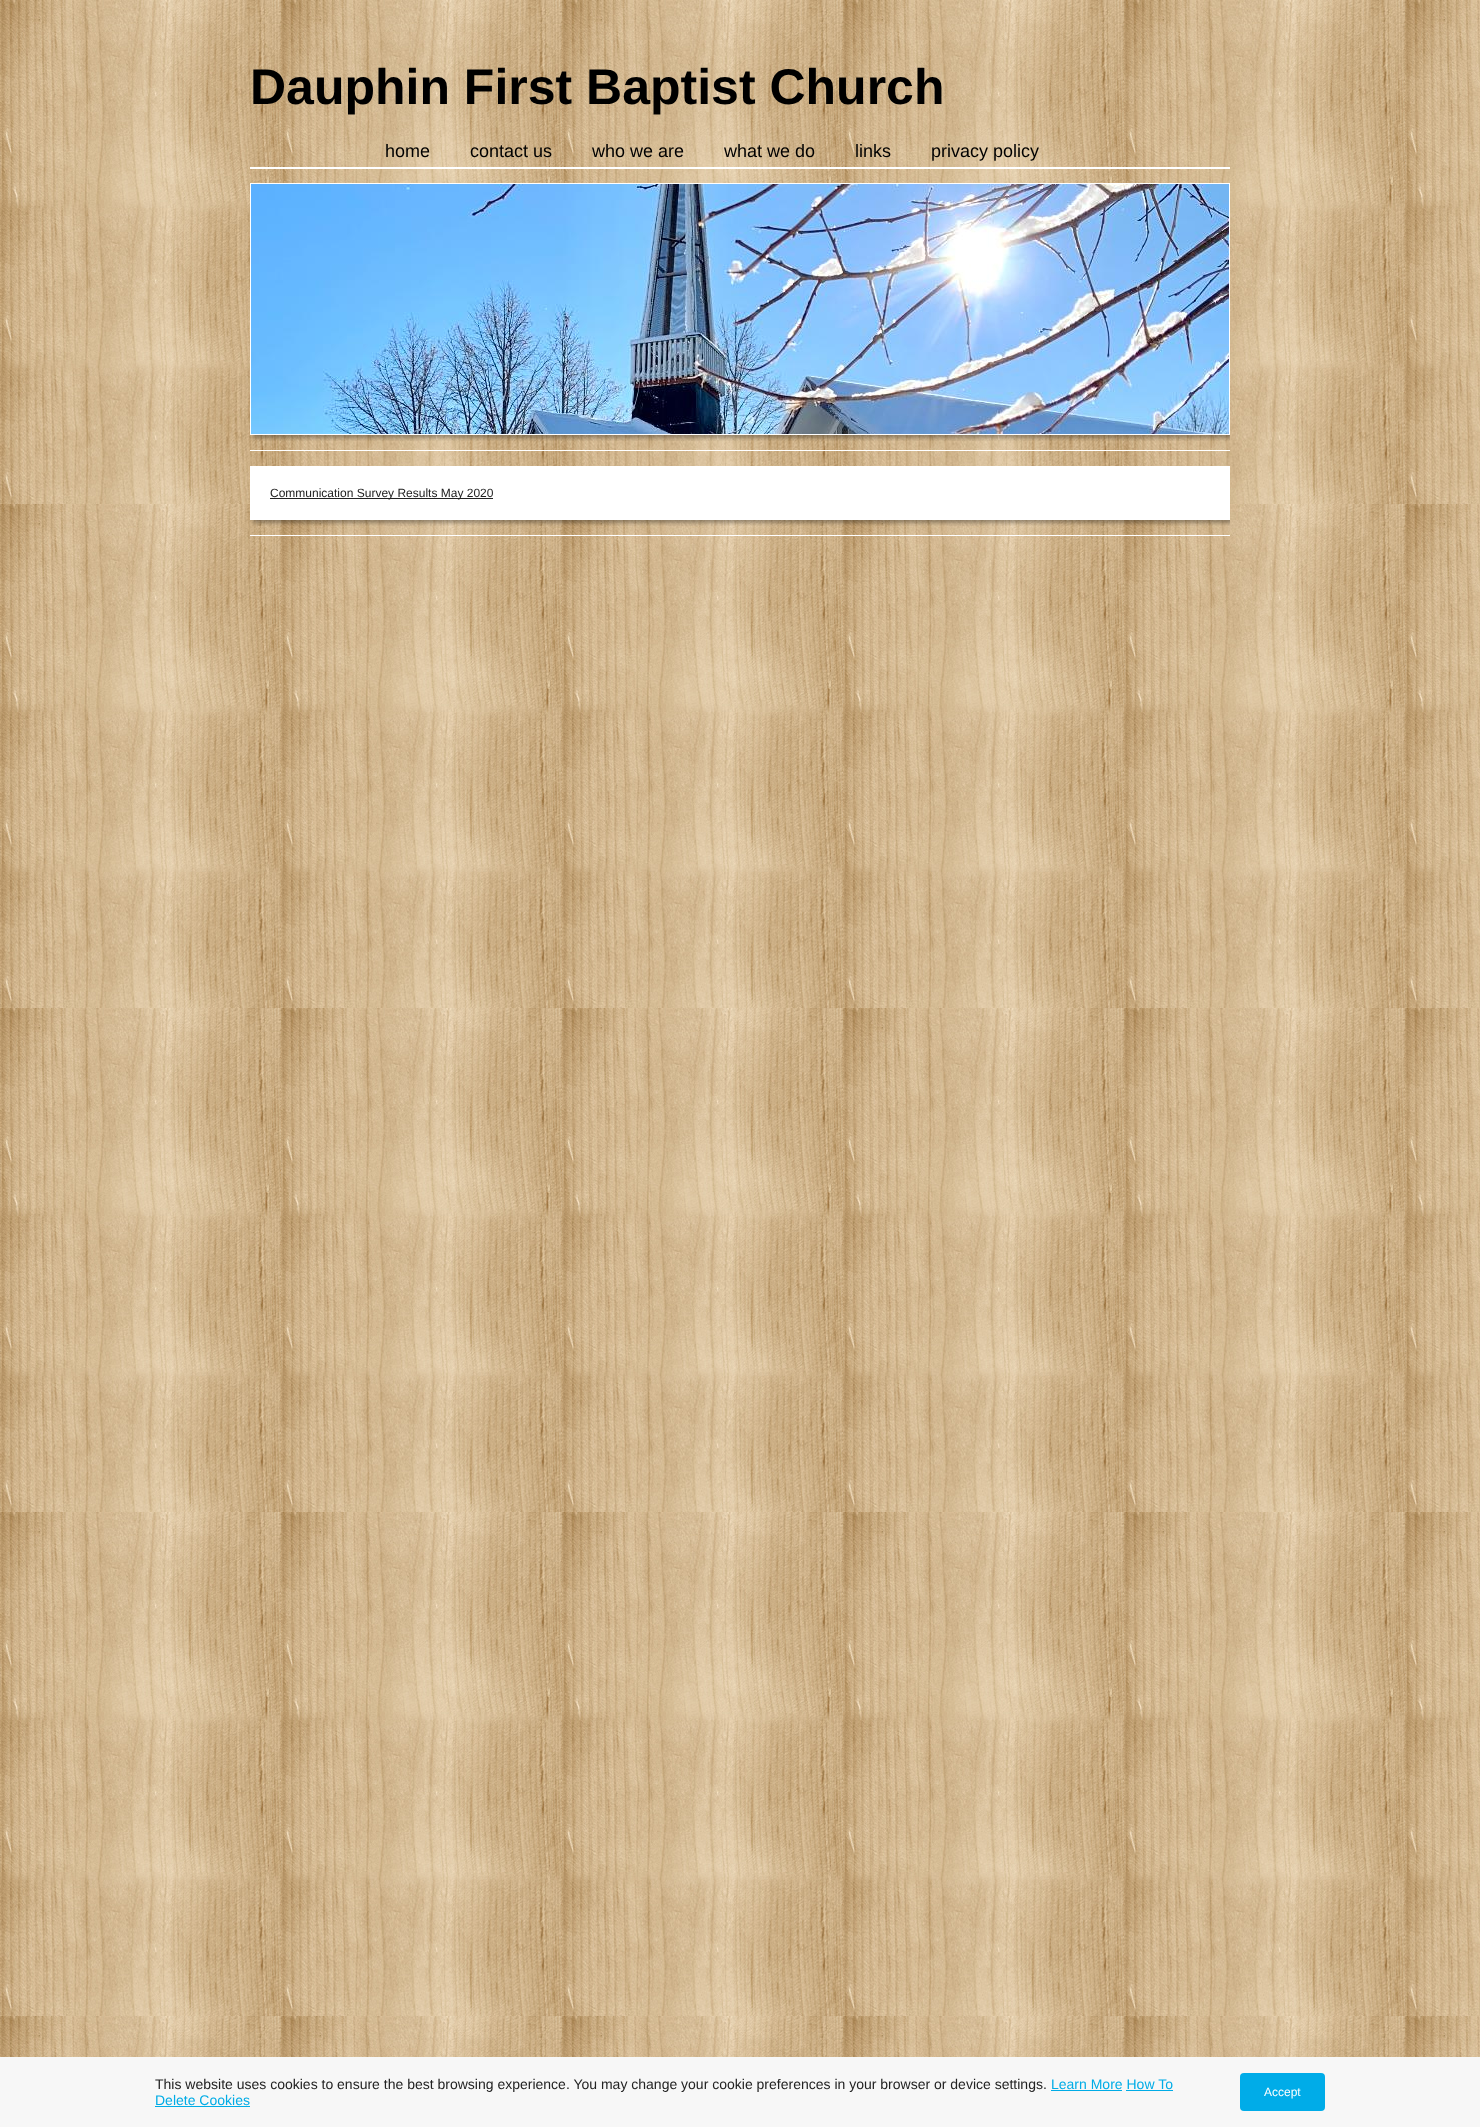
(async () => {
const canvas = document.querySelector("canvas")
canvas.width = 1480
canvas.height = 2127
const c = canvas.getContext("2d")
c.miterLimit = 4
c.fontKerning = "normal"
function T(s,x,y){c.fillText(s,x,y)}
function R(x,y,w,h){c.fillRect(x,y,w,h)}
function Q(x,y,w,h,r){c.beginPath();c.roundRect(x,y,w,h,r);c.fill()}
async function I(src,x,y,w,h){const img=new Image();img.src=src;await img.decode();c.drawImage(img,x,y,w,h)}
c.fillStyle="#fff"
R(0,0,1480,2127)
await I("1.png",0,0,1480,2057)
c.font="bold 50px Liberation Sans"
c.fillStyle="#000"
T("Dauphin First Baptist Church",250,104)
c.font="18px Liberation Sans"
T("home",385,157)
T("contact us",470,157)
T("who we are",592,157)
T("what we do",724,157)
T("links",855,157)
T("privacy policy",931,157)
c.fillStyle="#fff"
R(250,167,980,2)
await I("2.png",251,184,978,250)
c.strokeStyle="#fff"
c.strokeRect(250.5,183.5,979,251)
await I("3.png",250,435,980,6)
R(250,450,980,1)
R(250,466,980,54)
c.fillStyle="#222"
R(270,498,223,1)
c.font="12px Liberation Sans"
T("Communication Survey Results May 2020",270,497)
await I("4.png",250,520,980,6)
c.fillStyle="#fff"
R(250,535,980,1)
c.fillStyle="#f7f7f7"
R(0,2057,1480,70)
c.font="14px Liberation Sans"
c.fillStyle="#222"
T("This website uses cookies to ensure the best browsing experience. You may change your cookie preferences in your browser or device settings.",155,2089)
c.fillStyle="#00ace6"
T("Learn More How To",1051,2089)
R(1051,2090,71,1)
T("Delete Cookies",155,2105)
R(1126,2090,47,1)
R(155,2106,95,1)
c.fillStyle="#00ace8"
Q(1240,2073,85,38,4)
c.font="12px Liberation Sans"
c.fillStyle="#fff"
T("Accept",1264,2096)
})()
